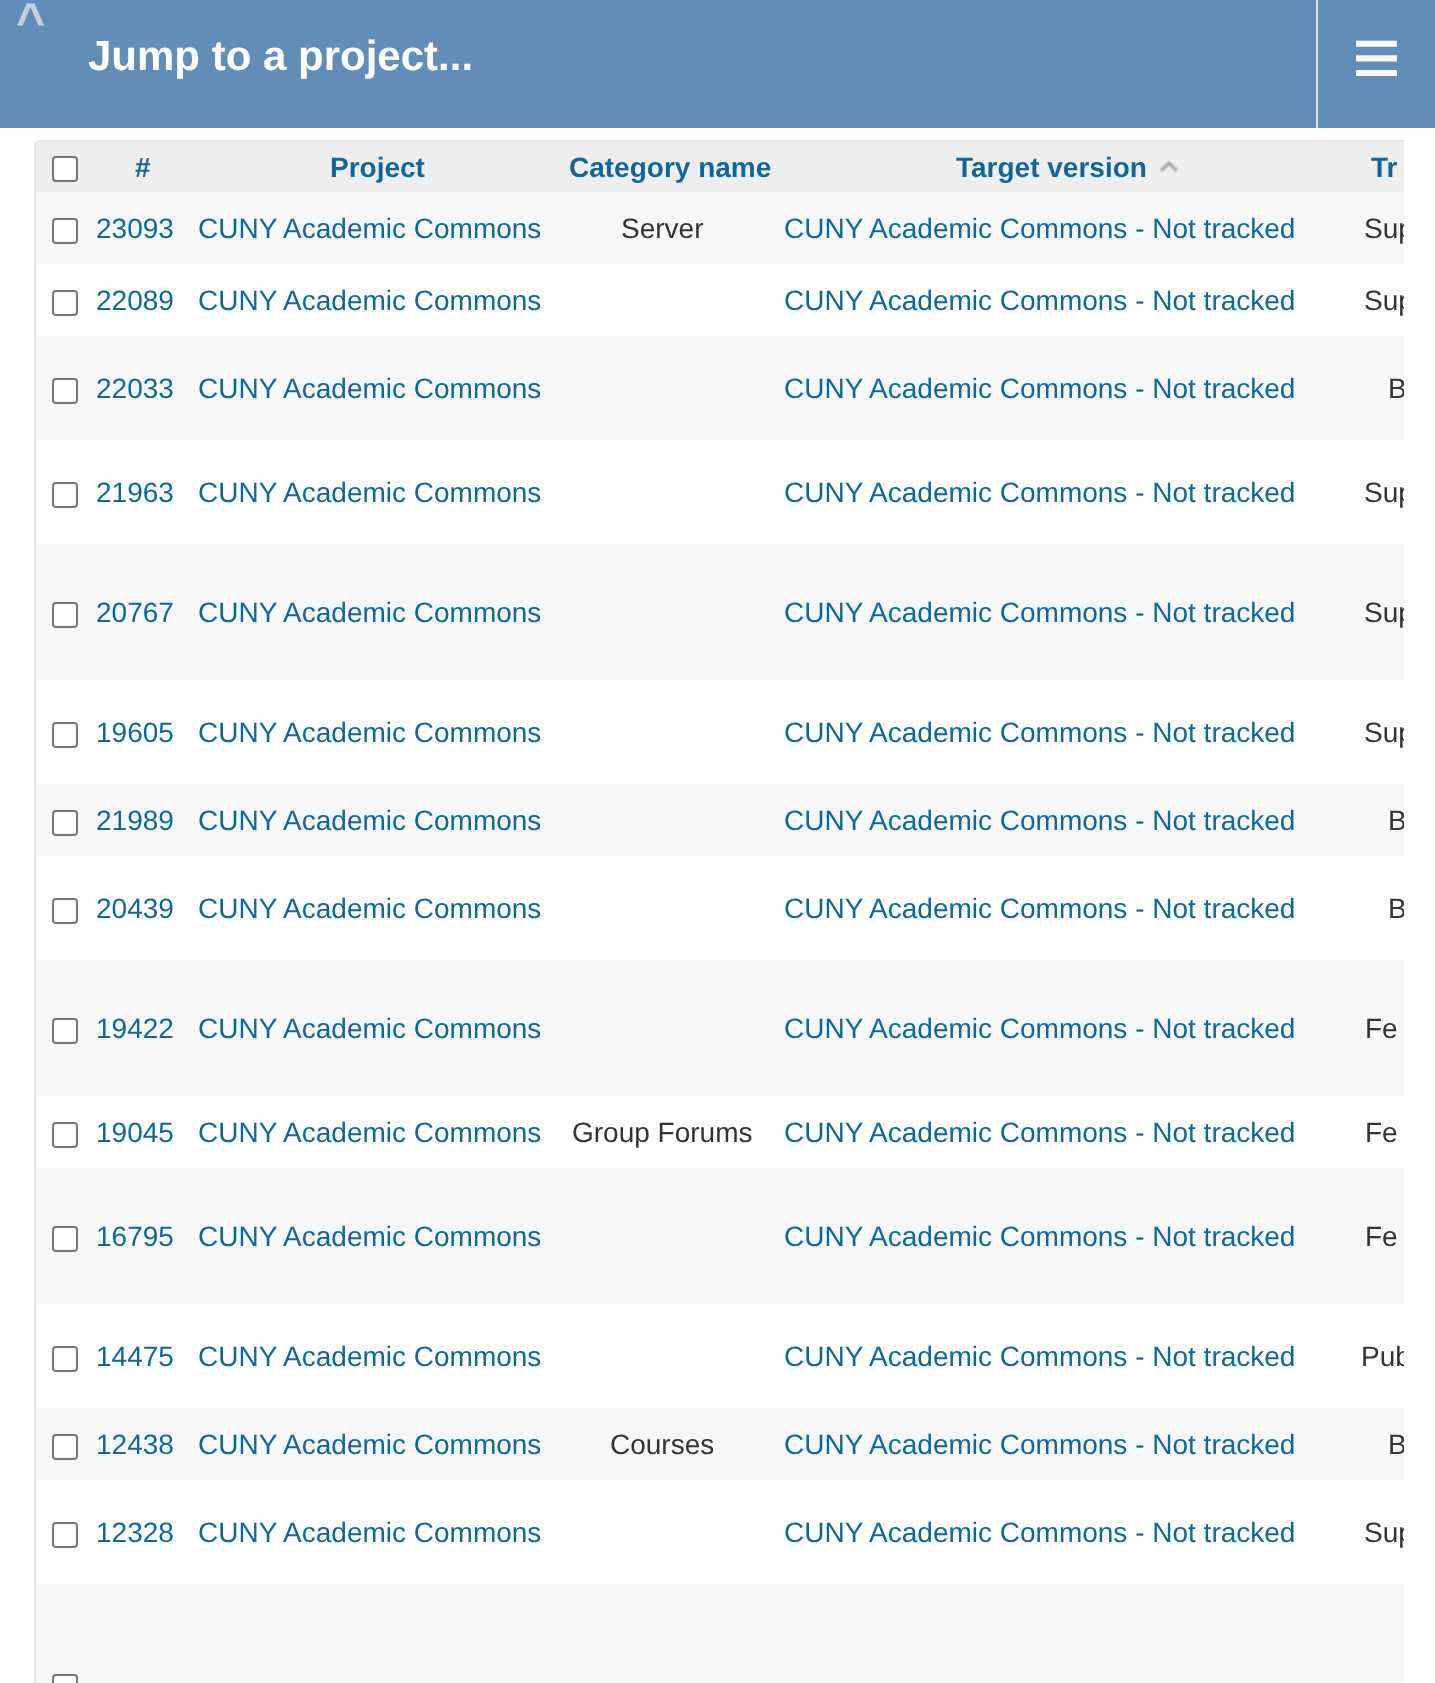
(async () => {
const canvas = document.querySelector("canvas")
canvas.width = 1435
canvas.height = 1683
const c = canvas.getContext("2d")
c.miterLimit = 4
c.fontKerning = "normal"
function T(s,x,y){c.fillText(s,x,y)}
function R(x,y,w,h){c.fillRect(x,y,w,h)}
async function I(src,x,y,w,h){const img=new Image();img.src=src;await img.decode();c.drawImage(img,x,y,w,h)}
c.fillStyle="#fff"
R(0,0,1435,1683)
c.fillStyle="#628db6"
R(0,0,1435,128)
c.letterSpacing="7px"
c.font="bold 50px Liberation Sans"
c.fillStyle="#c0d1e2"
T("^",16,38)
c.letterSpacing="0px"
c.font="bold 42px Liberation Sans"
c.fillStyle="#fff"
T("Jump to a project...",88,70)
c.fillStyle="#ddd"
R(1316,0,2,128)
c.font="84px Liberation Sans"
c.fillStyle="#f8f8f8"
T("≡",1352,86)
c.save()
c.beginPath()
c.rect(32,138,1372,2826)
c.clip()
c.beginPath()
c.roundRect(35,141,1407,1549,5)
c.strokeStyle="#e4e4e4"
c.lineWidth=2
c.stroke()
c.restore()
c.fillStyle="#eee"
c.beginPath()
c.roundRect(36,142,56,50,[4,0,0,0])
c.fill()
c.fillStyle="#fff"
c.beginPath()
c.roundRect(53,157,24,24,3)
c.fill()
c.strokeStyle="#767676"
c.lineWidth=2
c.stroke()
c.fillStyle="#eee"
R(92,142,1312,50)
c.font="bold 28px Liberation Sans"
c.fillStyle="#169"
T("#",135,177)
T("Project",330,177)
T("Category name",569,177)
T("Target version",956,177)
await I("1.png",1160,159,18,14)
T("Tr",1371,177)
c.fillStyle="#f6f7f8"
R(36,192,1368,72)
c.fillStyle="#fff"
c.beginPath()
c.roundRect(53,219,24,24,3)
c.fill()
c.stroke()
c.font="28px Liberation Sans"
c.fillStyle="#169"
T("23093",96,238)
T("CUNY Academic Commons",198,238)
c.fillStyle="#333"
T("Server",621,238)
c.fillStyle="#169"
T("CUNY Academic Commons - Not tracked",784,238)
c.save()
c.beginPath()
c.rect(32,138,1372,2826)
c.clip()
c.fillStyle="#333"
T("Sup",1364,238)
c.restore()
c.beginPath()
c.roundRect(53,291,24,24,3)
c.stroke()
T("22089",96,310)
T("CUNY Academic Commons",198,310)
T("CUNY Academic Commons - Not tracked",784,310)
c.save()
c.beginPath()
c.rect(32,138,1372,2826)
c.clip()
c.fillStyle="#333"
T("Sup",1364,310)
c.restore()
c.fillStyle="#f6f7f8"
R(36,336,1368,104)
c.fillStyle="#fff"
c.beginPath()
c.roundRect(53,379,24,24,3)
c.fill()
c.stroke()
c.fillStyle="#169"
T("22033",96,398)
T("CUNY Academic Commons",198,398)
T("CUNY Academic Commons - Not tracked",784,398)
c.save()
c.beginPath()
c.rect(32,138,1372,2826)
c.clip()
c.fillStyle="#333"
T("B",1388,398)
c.restore()
c.beginPath()
c.roundRect(53,483,24,24,3)
c.stroke()
T("21963",96,502)
T("CUNY Academic Commons",198,502)
T("CUNY Academic Commons - Not tracked",784,502)
c.save()
c.beginPath()
c.rect(32,138,1372,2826)
c.clip()
c.fillStyle="#333"
T("Sup",1364,502)
c.restore()
c.fillStyle="#f6f7f8"
R(36,544,1368,136)
c.fillStyle="#fff"
c.beginPath()
c.roundRect(53,603,24,24,3)
c.fill()
c.stroke()
c.fillStyle="#169"
T("20767",96,622)
T("CUNY Academic Commons",198,622)
T("CUNY Academic Commons - Not tracked",784,622)
c.save()
c.beginPath()
c.rect(32,138,1372,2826)
c.clip()
c.fillStyle="#333"
T("Sup",1364,622)
c.restore()
c.beginPath()
c.roundRect(53,723,24,24,3)
c.stroke()
T("19605",96,742)
T("CUNY Academic Commons",198,742)
T("CUNY Academic Commons - Not tracked",784,742)
c.save()
c.beginPath()
c.rect(32,138,1372,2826)
c.clip()
c.fillStyle="#333"
T("Sup",1364,742)
c.restore()
c.fillStyle="#f6f7f8"
R(36,784,1368,72)
c.fillStyle="#fff"
c.beginPath()
c.roundRect(53,811,24,24,3)
c.fill()
c.stroke()
c.fillStyle="#169"
T("21989",96,830)
T("CUNY Academic Commons",198,830)
T("CUNY Academic Commons - Not tracked",784,830)
c.save()
c.beginPath()
c.rect(32,138,1372,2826)
c.clip()
c.fillStyle="#333"
T("B",1388,830)
c.restore()
c.beginPath()
c.roundRect(53,899,24,24,3)
c.stroke()
T("20439",96,918)
T("CUNY Academic Commons",198,918)
T("CUNY Academic Commons - Not tracked",784,918)
c.save()
c.beginPath()
c.rect(32,138,1372,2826)
c.clip()
c.fillStyle="#333"
T("B",1388,918)
c.restore()
c.fillStyle="#f6f7f8"
R(36,960,1368,136)
c.fillStyle="#fff"
c.beginPath()
c.roundRect(53,1019,24,24,3)
c.fill()
c.stroke()
c.fillStyle="#169"
T("19422",96,1038)
T("CUNY Academic Commons",198,1038)
T("CUNY Academic Commons - Not tracked",784,1038)
c.fillStyle="#333"
T("Fe",1365,1038)
c.beginPath()
c.roundRect(53,1123,24,24,3)
c.stroke()
c.fillStyle="#169"
T("19045",96,1142)
T("CUNY Academic Commons",198,1142)
c.fillStyle="#333"
T("Group Forums",572,1142)
c.fillStyle="#169"
T("CUNY Academic Commons - Not tracked",784,1142)
c.fillStyle="#333"
T("Fe",1365,1142)
c.fillStyle="#f6f7f8"
R(36,1168,1368,136)
c.fillStyle="#fff"
c.beginPath()
c.roundRect(53,1227,24,24,3)
c.fill()
c.stroke()
c.fillStyle="#169"
T("16795",96,1246)
T("CUNY Academic Commons",198,1246)
T("CUNY Academic Commons - Not tracked",784,1246)
c.fillStyle="#333"
T("Fe",1365,1246)
c.beginPath()
c.roundRect(53,1347,24,24,3)
c.stroke()
c.fillStyle="#169"
T("14475",96,1366)
T("CUNY Academic Commons",198,1366)
T("CUNY Academic Commons - Not tracked",784,1366)
c.save()
c.beginPath()
c.rect(32,138,1372,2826)
c.clip()
c.fillStyle="#333"
T("Pub",1361,1366)
c.restore()
c.fillStyle="#f6f7f8"
R(36,1408,1368,72)
c.fillStyle="#fff"
c.beginPath()
c.roundRect(53,1435,24,24,3)
c.fill()
c.stroke()
c.fillStyle="#169"
T("12438",96,1454)
T("CUNY Academic Commons",198,1454)
c.fillStyle="#333"
T("Courses",610,1454)
c.fillStyle="#169"
T("CUNY Academic Commons - Not tracked",784,1454)
c.save()
c.beginPath()
c.rect(32,138,1372,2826)
c.clip()
c.fillStyle="#333"
T("B",1388,1454)
c.restore()
c.beginPath()
c.roundRect(53,1523,24,24,3)
c.stroke()
T("12328",96,1542)
T("CUNY Academic Commons",198,1542)
T("CUNY Academic Commons - Not tracked",784,1542)
c.save()
c.beginPath()
c.rect(32,138,1372,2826)
c.clip()
c.fillStyle="#333"
T("Sup",1364,1542)
c.restore()
c.fillStyle="#f6f7f8"
R(36,1584,1368,99)
c.fillStyle="#fff"
c.beginPath()
c.roundRect(53,1675,24,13,3)
c.fill()
c.stroke()
})()
